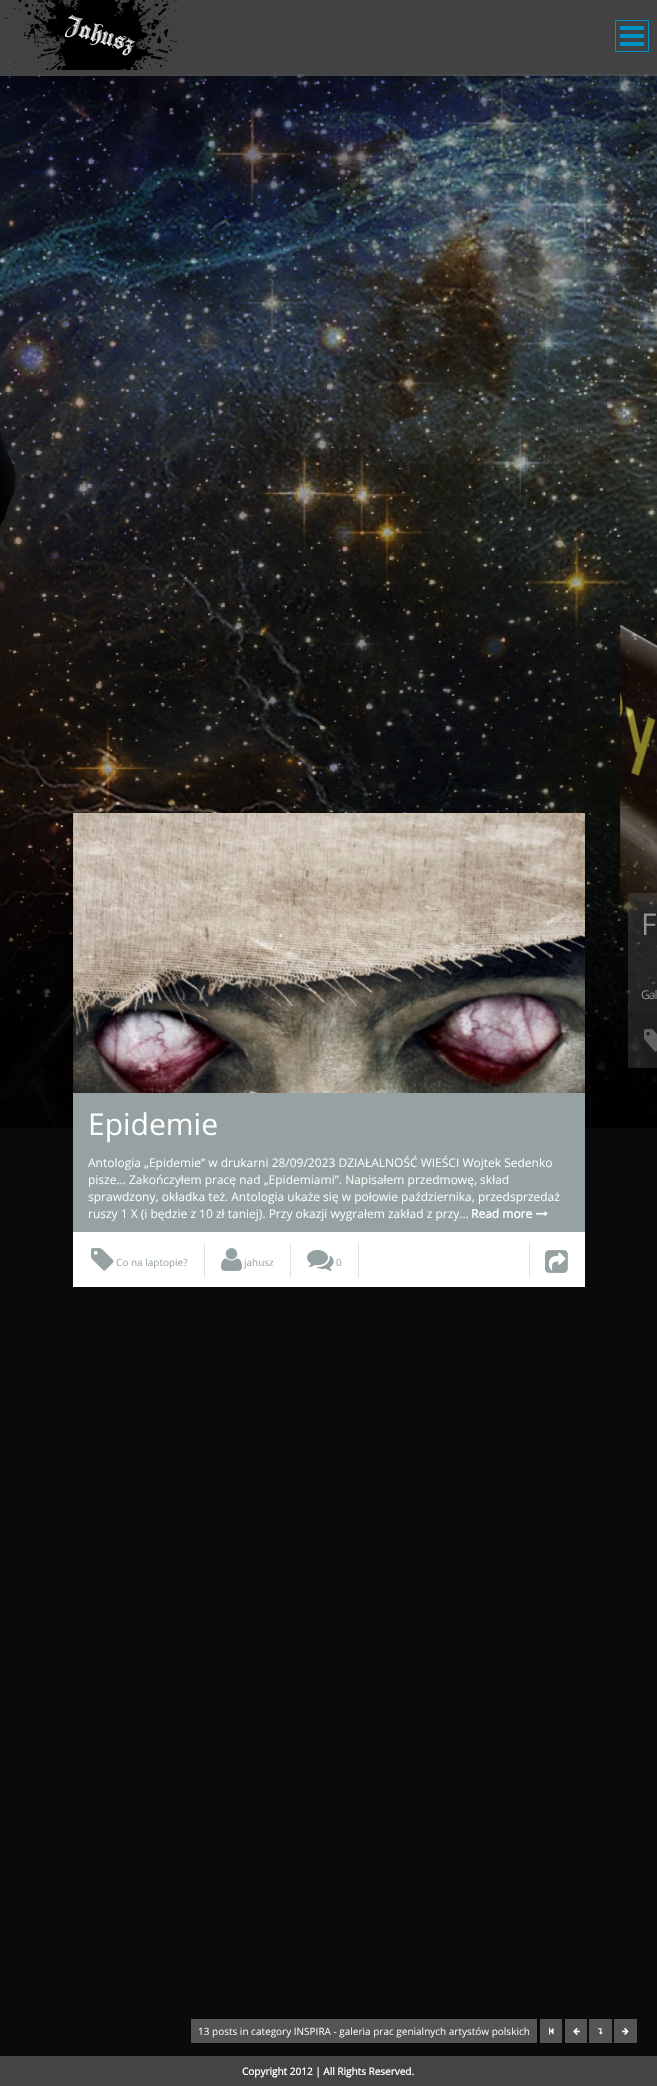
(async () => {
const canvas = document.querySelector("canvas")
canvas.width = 657
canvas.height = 2086
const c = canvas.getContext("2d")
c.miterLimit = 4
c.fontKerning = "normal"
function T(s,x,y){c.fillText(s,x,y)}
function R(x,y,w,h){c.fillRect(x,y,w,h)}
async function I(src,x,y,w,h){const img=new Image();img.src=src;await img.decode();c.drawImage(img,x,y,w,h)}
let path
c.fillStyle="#0a0a0a"
R(0,0,657,2086)
await I("1.png",0,0,657,1128)
c.save()
c.beginPath()
c.rect(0,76,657,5)
c.clip()
c.fillStyle="#00000033"
c.filter="blur(4px)"
c.beginPath()
c.rect(0,0,657,76)
c.fill()
c.filter="none"
c.restore()
c.fillStyle="#535353cc"
R(0,0,657,76)
await I("2.png",2,0,181,70)
c.strokeStyle="#0091c6"
c.strokeRect(615.5,20.5,33,31)
c.fillStyle="#0091c6"
R(620,42,24,4)
R(620,34,24,4)
R(620,26,24,4)
c.save()
path = new Path2D("M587 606h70v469h-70zm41 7h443v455h-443z")
c.clip(path,"evenodd")
c.fillStyle="#0000001a"
c.filter="blur(2px)"
c.beginPath()
c.rect(594,613,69,455)
c.fill()
c.filter="none"
c.restore()
await I("3.png",620,624,37,280)
c.fillStyle="#53535366"
R(628,893,29,175)
c.letterSpacing="-2px"
c.font="30px Open Sans"
c.fillStyle="#929392"
T("F",641,935)
c.letterSpacing="-1px"
c.font="12px Open Sans"
T("Gal",641,999)
c.fillStyle="#0000001a"
R(628,1013,29,55)
await I("4.png",644,1029,13,23)
c.fillStyle="#00000033"
c.filter="blur(2px)"
c.beginPath()
c.rect(73,813,512,474)
c.fill()
c.filter="none"
await I("5.png",73,813,512,280)
c.fillStyle="#96a2a2"
R(73,1093,512,139)
c.letterSpacing="0px"
c.font="30px Open Sans"
c.fillStyle="#fff"
T("Epidemie",88,1135)
c.font="12px Open Sans"
T("Antologia „Epidemie” w drukarni 28/09/2023 DZIAŁALNOŚĆ WIEŚCI Wojtek Sedenko",88,1167)
T("pisze… Zakończyłem pracę nad „Epidemiami”. Napisałem przedmowę, skład",88,1184)
T("sprawdzony, okładka też. Antologia ukaże się w połowie października, przedsprzedaż",88,1201)
T("ruszy 1 X (i będzie z 10 zł taniej). Przy okazji wygrałem zakład z przy...",88,1218)
c.font="bold 12px Open Sans"
T("Read more",471,1218)
await I("6.png",536,1211,12,6)
R(73,1232,512,55)
c.fillStyle="#e0e3e3"
R(204,1243,1,35)
await I("7.png",91,1248,23,23)
c.font="10px Open Sans"
c.fillStyle="#96a2a2"
T("Co na laptopie?",116,1266)
c.fillStyle="#e0e3e3"
R(290,1243,1,35)
await I("8.png",221,1248,21,23)
c.fillStyle="#96a2a2"
T("jahusz",244,1266)
c.fillStyle="#e0e3e3"
R(358,1243,1,35)
await I("9.png",307,1250,27,21)
c.fillStyle="#96a2a2"
T("0",336,1266)
c.fillStyle="#e0e3e3"
R(529,1243,1,34)
await I("10.png",545,1250,23,23)
c.fillStyle="#545454"
R(191,2019,346,24)
c.fillStyle="#fff"
T("13 posts in category INSPIRA - galeria prac genialnych artystów polskich",198,2035)
c.fillStyle="#545454"
R(540,2019,22,24)
await I("11.png",549,2027,5,8)
R(565,2019,22,24)
await I("12.png",573,2028,7,7)
R(589,2019,23,24)
await I("13.png",598,2028,5,7)
R(614,2019,23,24)
await I("14.png",622,2028,7,7)
c.fillStyle="#444"
R(0,2056,657,30)
c.font="bold 10px Open Sans"
c.fillStyle="#fff"
T("Copyright 2012 | All Rights Reserved.",242,2075)
})()
